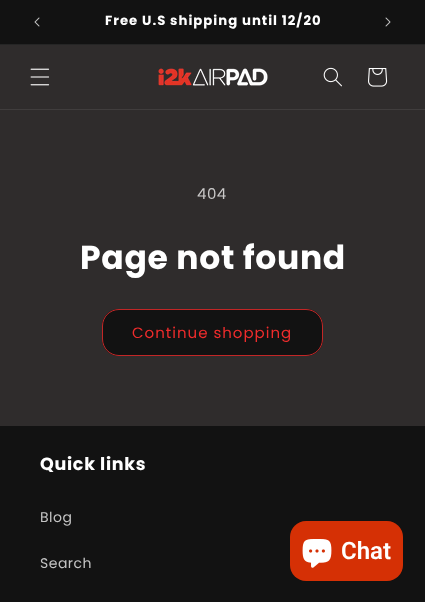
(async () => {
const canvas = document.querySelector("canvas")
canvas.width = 425
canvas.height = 602
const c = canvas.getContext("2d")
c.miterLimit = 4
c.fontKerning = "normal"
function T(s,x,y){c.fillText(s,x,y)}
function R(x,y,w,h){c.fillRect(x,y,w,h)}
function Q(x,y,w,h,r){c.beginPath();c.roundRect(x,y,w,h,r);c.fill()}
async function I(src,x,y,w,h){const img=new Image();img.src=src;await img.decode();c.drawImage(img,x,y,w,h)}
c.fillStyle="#2f2c2c"
R(0,0,425,602)
c.fillStyle="#121212"
R(0,0,425,44)
c.fillStyle="#252525"
R(0,44,425,1)
await I("1.png",34,17,6,10)
c.letterSpacing="1px"
c.font="bold 13.25px Poppins"
c.fillStyle="#fff"
T("Free U.S shipping until 12/20",105,25)
await I("2.png",385,17,6,10)
c.fillStyle="#403d3d"
R(0,109,425,1)
await I("3.png",30,68,20,18)
await I("4.png",158,68,110,18)
await I("5.png",323,67,19,20)
await I("6.png",368,68,20,19)
c.letterSpacing="0.5px"
c.font="15px Poppins"
c.fillStyle="#cbcaca"
T("404",197,199)
c.letterSpacing="0.7px"
c.font="bold 33px Poppins"
c.fillStyle="#fff"
T("Page not found",80,269)
c.fillStyle="#121212"
Q(102,309,221,47,17)
c.beginPath()
c.roundRect(102.5,309.5,220,46,16.5)
c.strokeStyle="#121212"
c.stroke()
c.beginPath()
c.roundRect(102.5,309.5,220,46,16.5)
c.strokeStyle="#ef2c2ccc"
c.stroke()
c.letterSpacing="1px"
c.font="15px Poppins"
c.fillStyle="#ef2c2c"
T("Continue shopping",132,338)
c.fillStyle="#121212"
R(0,426,425,176)
c.letterSpacing="0.7px"
c.font="bold 17.5px Poppins"
c.fillStyle="#fff"
T("Quick links",40,470)
c.letterSpacing="0.5px"
c.font="14px Poppins"
c.fillStyle="#c4c4c4"
T("Blog",40,522)
T("Search",40,568)
c.fillStyle="#d53005"
Q(290,521,113,60,16)
await I("7.png",302,539,30,29)
c.letterSpacing="0px"
c.font="600 24px Roboto"
c.fillStyle="#fff"
T("Chat",341,559)
})()
